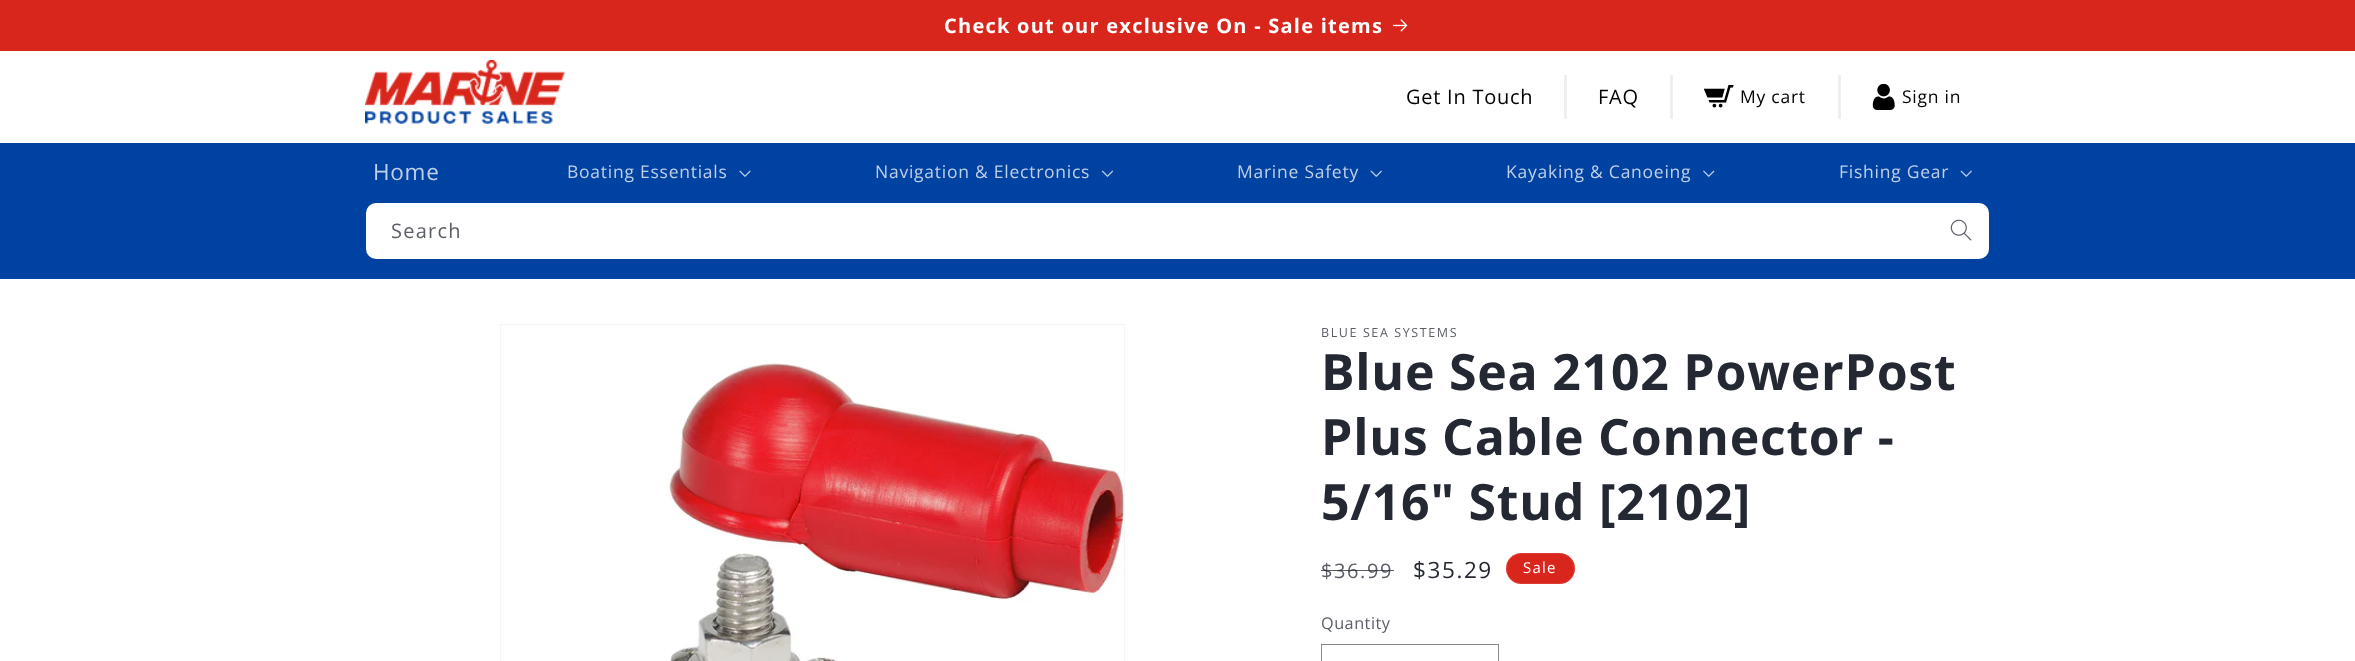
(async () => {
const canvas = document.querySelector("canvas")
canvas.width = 2355
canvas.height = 661
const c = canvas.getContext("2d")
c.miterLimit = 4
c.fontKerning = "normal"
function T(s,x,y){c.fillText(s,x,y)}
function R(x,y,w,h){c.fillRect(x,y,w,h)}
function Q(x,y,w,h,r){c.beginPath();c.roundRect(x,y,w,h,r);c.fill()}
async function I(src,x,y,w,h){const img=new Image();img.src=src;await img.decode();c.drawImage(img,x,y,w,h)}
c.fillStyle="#fff"
R(0,0,2355,661)
c.fillStyle="#d9261c"
R(0,0,2355,51)
c.letterSpacing="1.25px"
c.font="bold 20px Open Sans"
c.fillStyle="#fff"
T("Check out our exclusive On - Sale items",944,33)
await I("1.png",1393,19,15,13)
await I("2.png",365,60,200,64)
c.letterSpacing="0.75px"
c.font="20px Open Sans"
c.fillStyle="#000"
T("Get In Touch",1406,104)
c.fillStyle="#efefef"
R(1564,75,3,44)
c.fillStyle="#000"
T("FAQ",1598,104)
c.fillStyle="#efefef"
R(1670,75,3,44)
await I("3.png",1704,85,30,23)
c.font="17.5px Open Sans"
c.fillStyle="#000"
T("My cart",1740,103)
c.fillStyle="#efefef"
R(1838,75,3,44)
await I("4.png",1872,84,23,26)
c.fillStyle="#000"
T("Sign in",1902,103)
c.fillStyle="#0042a1"
R(0,143,2355,136)
c.font="22.5px Open Sans"
c.fillStyle="#bfd0e8"
T("Home",373,180)
c.font="17.5px Open Sans"
T("Boating Essentials",567,178)
await I("5.png",739,170,12,7)
T("Navigation & Electronics",875,178)
await I("6.png",1101,170,13,7)
T("Marine Safety",1237,178)
await I("7.png",1370,170,12,7)
T("Kayaking & Canoeing",1506,178)
await I("8.png",1703,170,12,7)
T("Fishing Gear",1839,178)
await I("7.png",1960,170,12,7)
c.fillStyle="#fff"
Q(366,203,1623,56,10)
c.letterSpacing="1.25px"
c.font="20px Open Sans"
c.fillStyle="#5b5e66"
T("Search",391,238)
await I("9.png",1950,219,22,22)
c.strokeStyle="#f4f4f5"
c.strokeRect(500.5,324.5,624,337)
await I("10.png",667,362,457,299)
c.letterSpacing="1.6px"
c.font="12.5px Open Sans"
T("BLUE SEA SYSTEMS",1321,337)
c.letterSpacing="0.75px"
c.font="bold 50px Open Sans"
c.fillStyle="#242833"
T("Blue Sea 2102 PowerPost",1321,390)
T("Plus Cable Connector -",1321,455)
T("5/16\" Stud [2102]",1321,520)
c.letterSpacing="1.6px"
c.font="20px Open Sans"
c.fillStyle="#5b5e66"
T("$36.99",1321,578)
c.fillStyle="#242833bf"
R(1321,570,73,1)
c.font="22.5px Open Sans"
c.fillStyle="#242833"
T("$35.29",1413,578)
c.fillStyle="#d9261c"
Q(1506,553,69,31,15.5)
c.beginPath()
c.roundRect(1506.5,553.5,68,30,15)
c.strokeStyle="#ffffff1a"
c.stroke()
c.letterSpacing="1.25px"
c.font="15px Open Sans"
c.fillStyle="#fff"
T("Sale",1523,573)
c.letterSpacing="0.5px"
c.font="16.25px Open Sans"
c.fillStyle="#5b5e66"
T("Quantity",1321,629)
c.strokeStyle="#87898f"
c.strokeRect(1321.5,644.5,177,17)
})()
